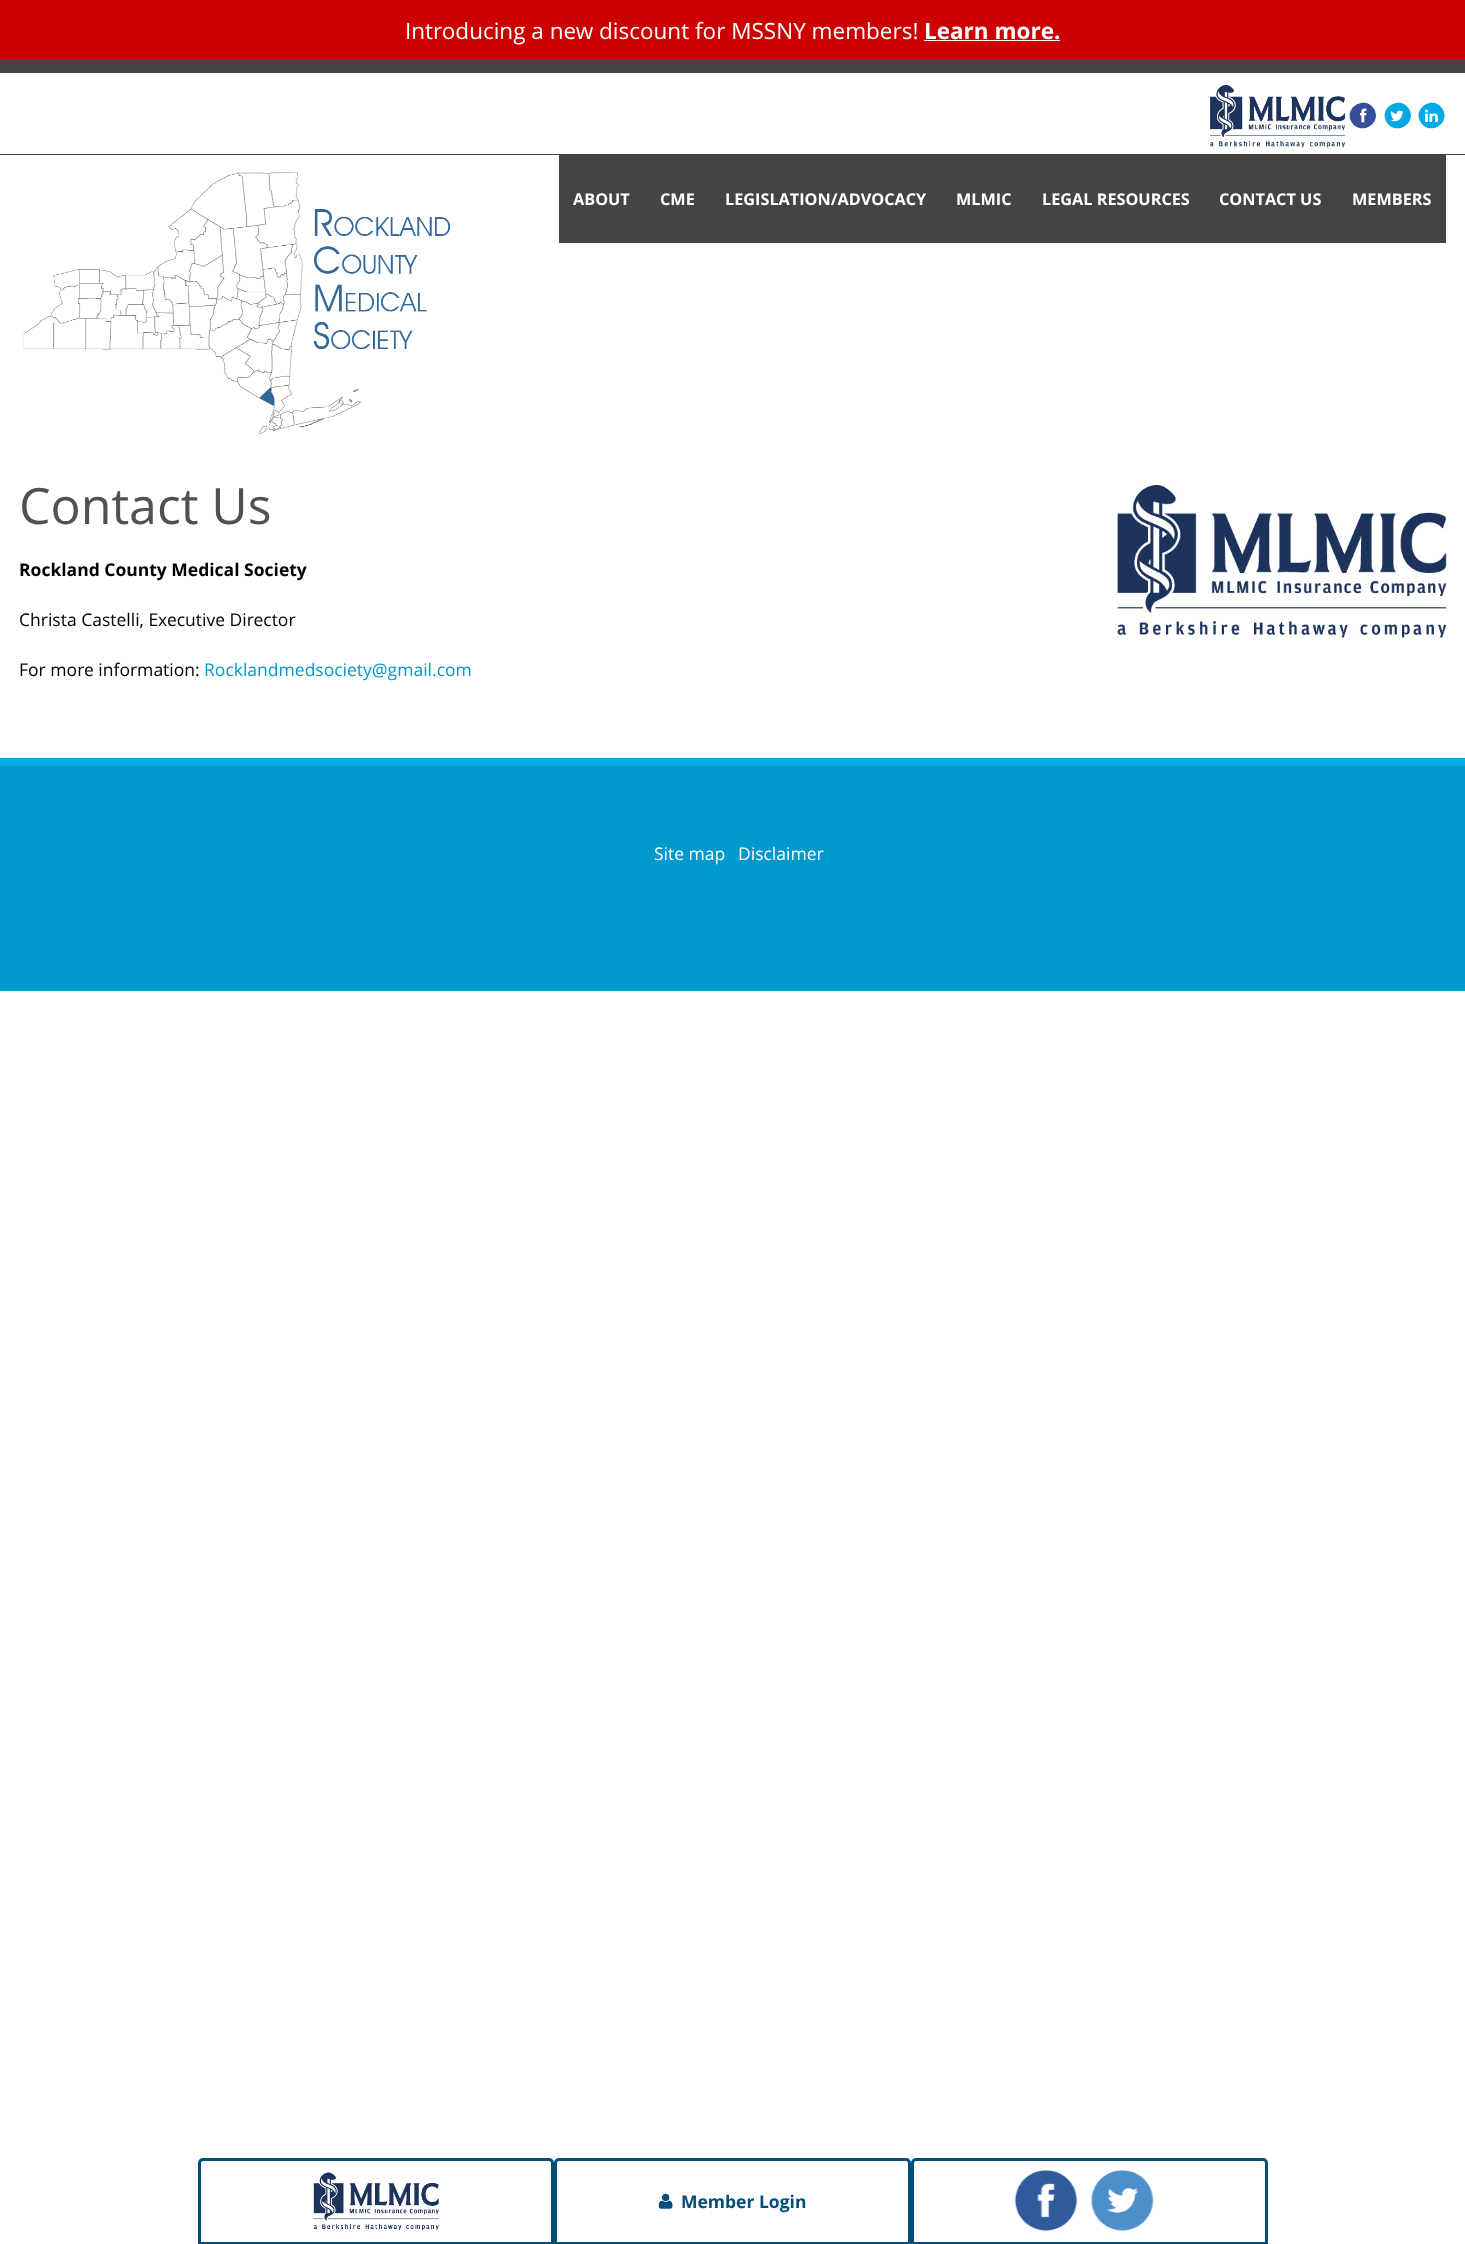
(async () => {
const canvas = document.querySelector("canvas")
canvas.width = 1465
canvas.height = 2244
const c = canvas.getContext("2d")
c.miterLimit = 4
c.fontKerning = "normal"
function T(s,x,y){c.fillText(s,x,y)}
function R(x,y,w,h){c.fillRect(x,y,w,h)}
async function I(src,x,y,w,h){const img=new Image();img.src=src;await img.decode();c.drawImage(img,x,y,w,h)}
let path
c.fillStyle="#fff"
R(0,0,1465,2244)
c.fillStyle="#c00"
R(0,0,1465,59)
c.font="22.5px Open Sans"
c.fillStyle="#fff"
T("Introducing a new discount for MSSNY members!",405,39)
c.font="bold 22.5px Open Sans"
T("Learn more.",924,39)
R(924,40,136,1)
c.fillStyle="#444"
R(0,154,1465,1)
R(0,59,1465,14)
await I("1.png",1210,85,135,63)
c.fillStyle="#354e99"
path = new Path2D("M1374 109c8.5 14.5-13.5 27.5-22.5 13c-8.5-14.5 14-27.5 22.5-13z")
c.fill(path)
await I("2.png",1360,108,7,15)
c.fillStyle="#00a9e3"
path = new Path2D("M1409 109c8.5 14.5-13.5 27.5-22.5 13c-8.5-14.5 14-27.5 22.5-13z")
c.fill(path)
await I("3.png",1390,110,14,12)
path = new Path2D("M1442.5 109c9 14.5-13.5 27.5-22 13c-8.5-14.5 13.5-27.5 22-13z")
c.fill(path)
await I("4.png",1425,109,13,13)
await I("5.png",23,172,428,262)
c.fillStyle="#444"
R(559,155,887,88)
c.font="bold 16.25px Open Sans"
c.fillStyle="#fff"
T("ABOUT",573,205)
T("CME",660,205)
T("LEGISLATION/ADVOCACY",725,205)
T("MLMIC",956,205)
T("LEGAL RESOURCES",1042,205)
T("CONTACT US",1219,205)
T("MEMBERS",1352,205)
c.font="50px Open Sans"
c.fillStyle="#515151"
T("Contact Us",19,524)
c.font="bold 17.5px Open Sans"
c.fillStyle="#000"
T("Rockland County Medical Society",19,576)
c.font="17.5px Open Sans"
T("Christa Castelli, Executive Director",19,626)
T("For more information:",19,676)
c.fillStyle="#09c"
T("Rocklandmedsociety@gmail.com",204,676)
await I("6.png",1117,485,330,153)
R(0,766,1465,225)
c.fillStyle="#00ace6"
R(0,758,1465,8)
c.fillStyle="#fff"
T("Site map",654,860)
T("Disclaimer",738,860)
path = new Path2D("M203 2159.5h346c2 0 3.5 1.5 3.5 3.5v80.5h-353v-80.5c0-2 1.5-3.5 3.5-3.5z")
c.strokeStyle="#014f79"
c.lineWidth=3
c.stroke(path)
await I("7.png",313,2172,126,59)
path = new Path2D("M559 2159.5h347c2 0 3.5 1.5 3.5 3.5v80.5h-354v-80.5c0-2 1.5-3.5 3.5-3.5z")
c.stroke(path)
await I("8.png",658,2193,15,16)
c.font="bold 17.5px Open Sans"
c.fillStyle="#014f79"
T("Member Login",681,2208)
path = new Path2D("M916 2159.5h347c2 0 3.5 1.5 3.5 3.5v80.5h-354v-80.5c0-2 1.5-3.5 3.5-3.5z")
c.stroke(path)
await I("9.png",1014,2170,64,62)
await I("10.png",1090,2170,64,62)
})()
